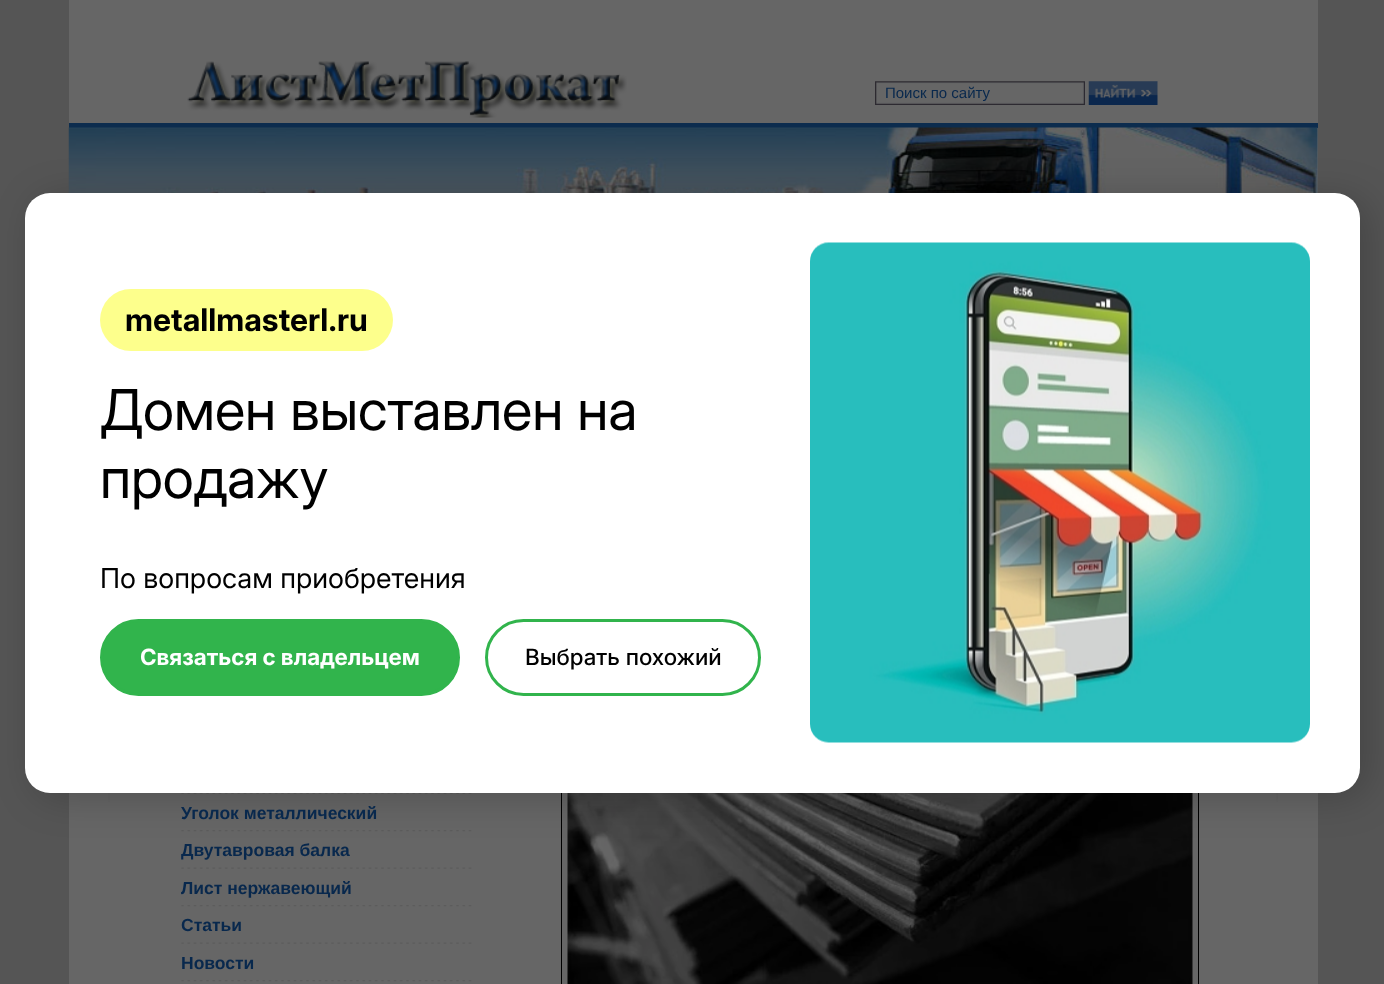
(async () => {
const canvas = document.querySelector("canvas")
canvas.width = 1384
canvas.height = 984
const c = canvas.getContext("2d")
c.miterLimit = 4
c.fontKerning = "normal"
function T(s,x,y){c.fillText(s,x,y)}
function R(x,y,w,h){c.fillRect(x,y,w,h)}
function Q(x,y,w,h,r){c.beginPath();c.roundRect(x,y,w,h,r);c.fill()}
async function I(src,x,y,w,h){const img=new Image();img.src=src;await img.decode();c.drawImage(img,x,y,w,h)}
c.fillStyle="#555"
R(0,0,1384,984)
c.fillStyle="#666"
R(69,0,1249,984)
await I("1.png",875,81,210,24)
c.font="15px Liberation Sans"
c.fillStyle="#08284d"
T("Поиск по сайту",885,98)
await I("2.png",1088,81,70,24)
c.fillStyle="#0c2c4e"
R(69,123,1249,5)
await I("5.png",68,127,1250,66)
await I("6.png",108,793,1170,9)
await I("7.png",181,793,291,1)
await I("8.png",181,830,291,2)
c.strokeStyle="#000"
c.strokeRect(561.5,515.5,637,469)
await I("10.png",567,793,626,191)
c.fillStyle="#00000033"
c.filter="blur(19px)"
c.beginPath()
c.roundRect(34,198,1335,600,25)
c.fill()
c.filter="none"
c.fillStyle="#fff"
Q(25,193,1335,600,25)
c.fillStyle="#fdff8c"
Q(100,289,293,62,31)
c.font="bold 31.25px Inter"
c.fillStyle="#000"
T("metallmasterl.ru",125,331)
c.font="56.25px Inter"
T("Домен выставлен на",100,430)
T("продажу",100,498)
c.font="27.5px 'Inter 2'"
T("По вопросам приобретения",100,588)
c.fillStyle="#31b44c"
c.beginPath()
c.roundRect(101.5,620.5,357,74,37)
c.fill()
c.strokeStyle="#31b44c"
c.lineWidth=3
c.stroke()
c.font="bold 22.5px 'Inter 2'"
c.fillStyle="#fff"
T("Связаться с владельцем",140,665)
c.beginPath()
c.roundRect(486.5,620.5,273,74,37)
c.stroke()
c.font="500 22.5px Inter"
c.fillStyle="#000"
T("Выбрать похожий",525,665)
await I("3.png",810,242,500,501)
await I("4.png",187,61,440,57)
c.font="bold 17.5px Liberation Sans"
c.fillStyle="#08284d"
T("Уголок металлический",181,819)
await I("9.png",181,867,291,2)
T("Двутавровая балка",181,856)
await I("8.png",181,905,291,2)
T("Лист нержавеющий",181,894)
await I("9.png",181,942,291,2)
T("Статьи",181,931)
await I("8.png",181,980,291,2)
T("Новости",181,969)
})()
